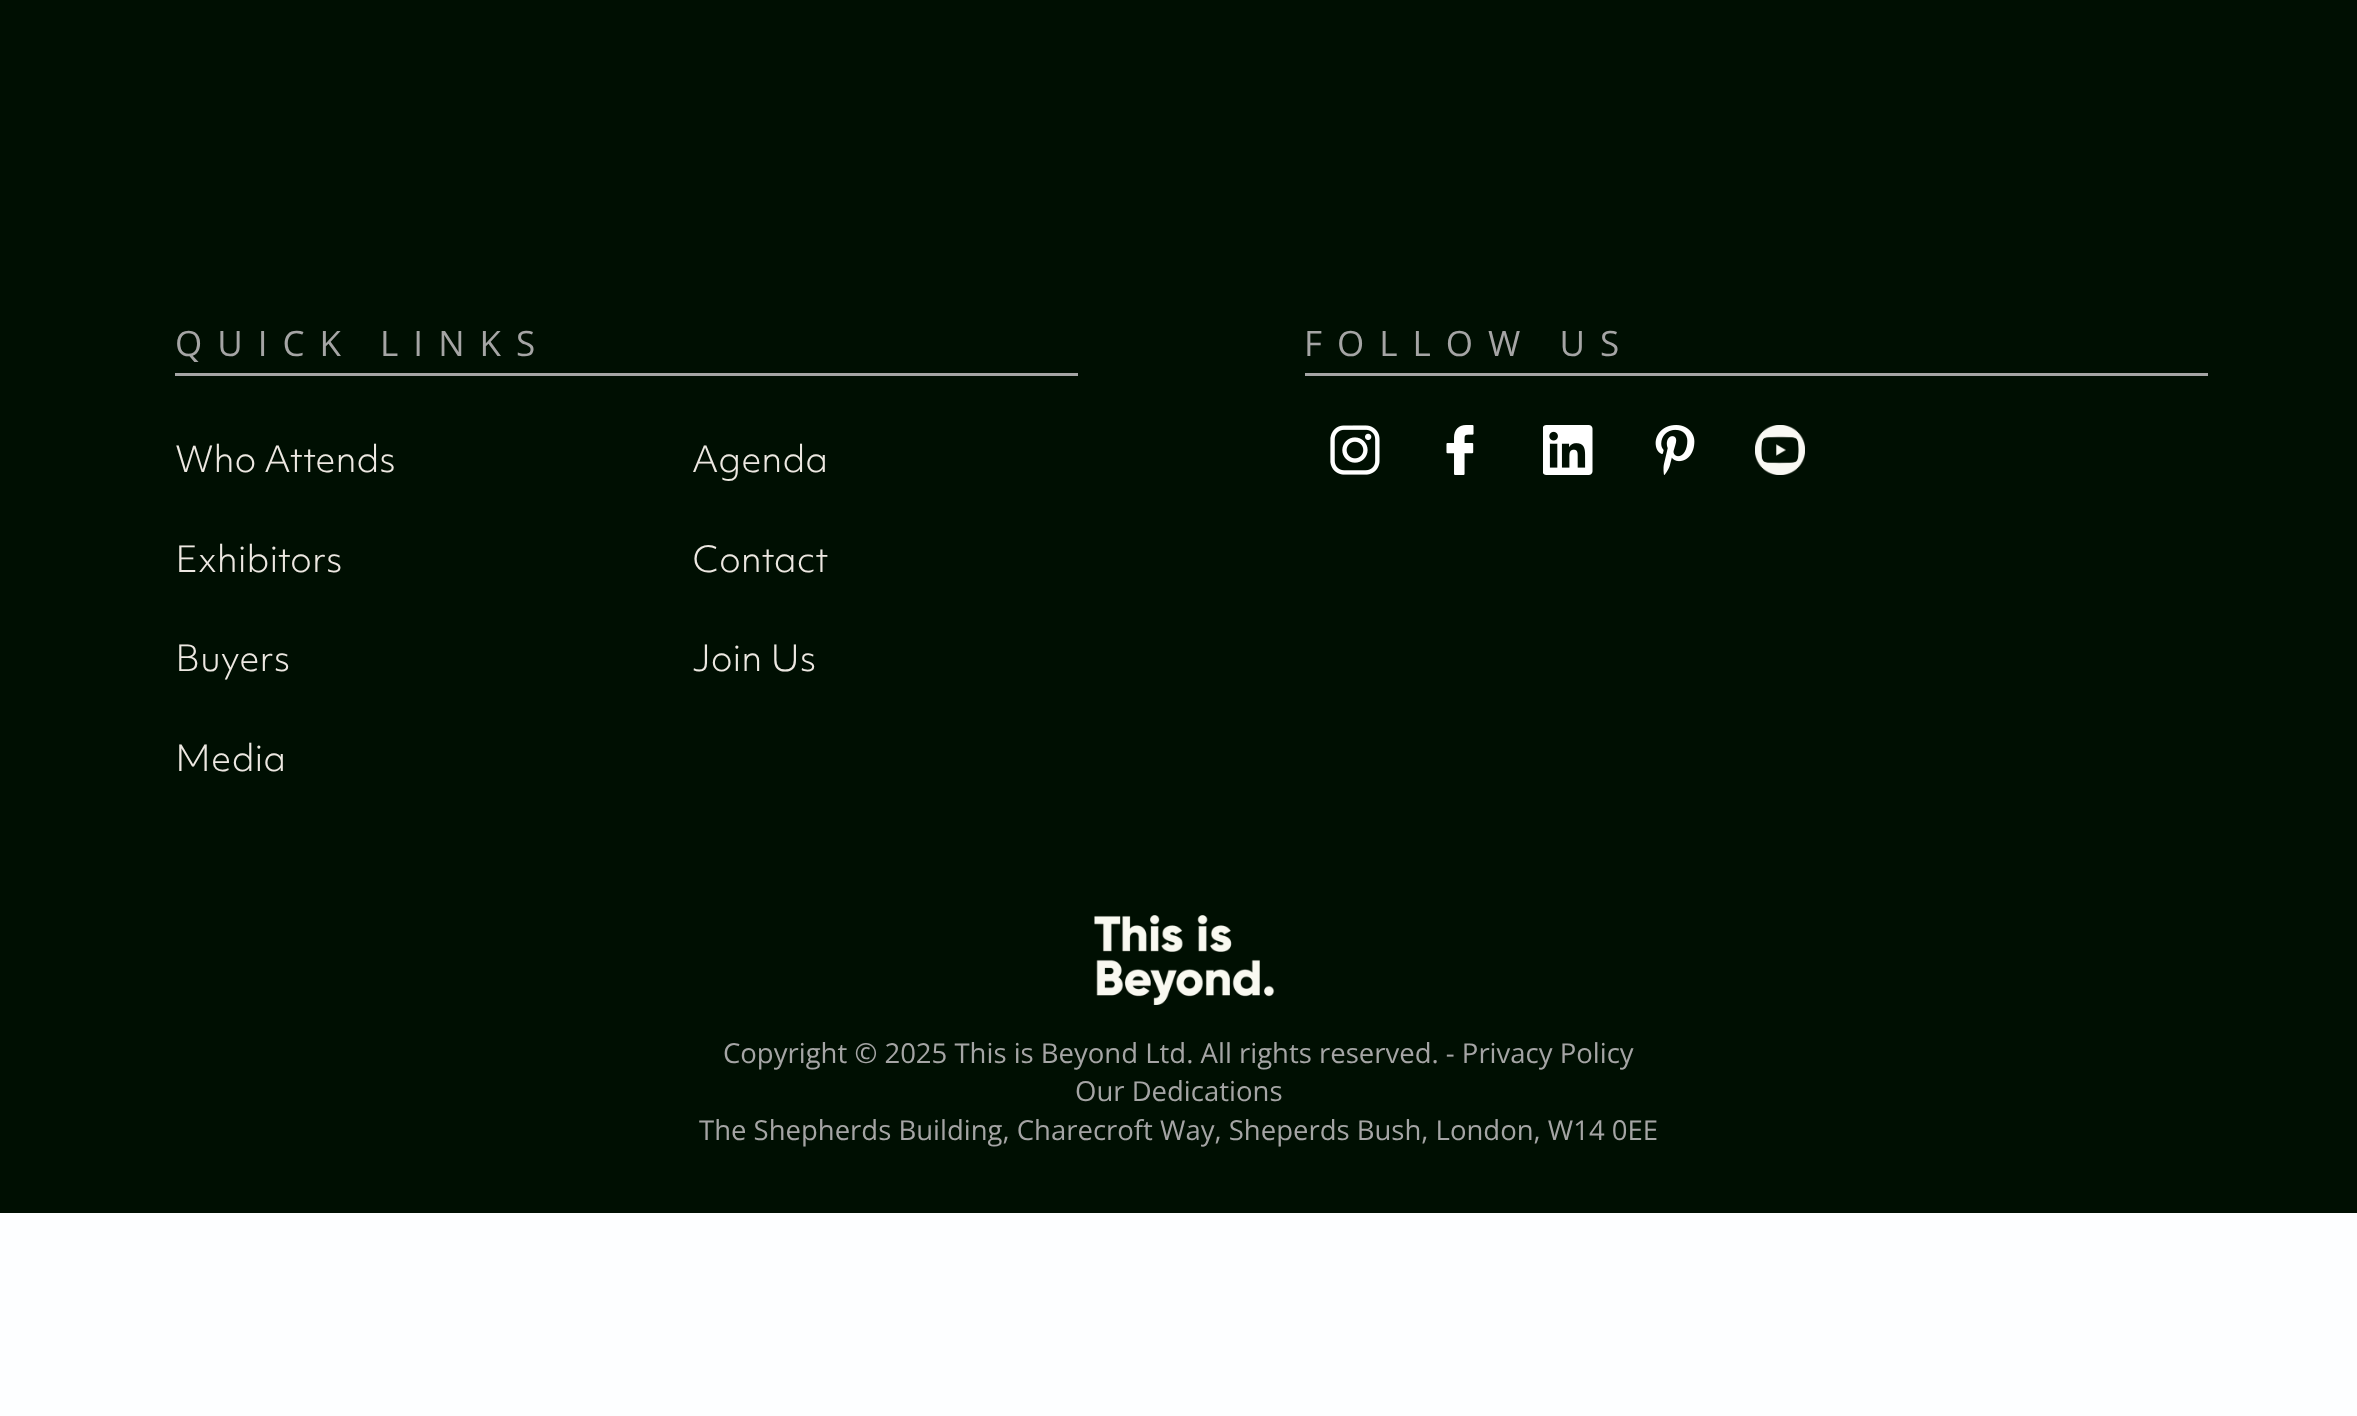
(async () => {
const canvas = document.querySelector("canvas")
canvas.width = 2357
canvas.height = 1416
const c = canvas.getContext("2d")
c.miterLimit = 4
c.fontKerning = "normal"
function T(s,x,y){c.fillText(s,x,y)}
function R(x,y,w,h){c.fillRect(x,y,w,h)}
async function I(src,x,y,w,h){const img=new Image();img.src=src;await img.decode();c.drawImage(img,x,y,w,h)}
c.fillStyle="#fdfeff"
R(0,0,2357,1416)
c.fillStyle="#000f02"
R(0,0,2357,1213)
c.fillStyle="#a5a5a5"
R(175,373,903,3)
c.letterSpacing="15px"
c.font="35px Open Sans"
T("QUICK LINKS",175,356)
c.letterSpacing="0px"
c.font="300 35px 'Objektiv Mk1'"
c.fillStyle="#ede8e2"
T("Who Attends",175,472)
T("Agenda",692,472)
T("Exhibitors",175,572)
T("Contact",692,572)
T("Buyers",175,671)
T("Join Us",692,671)
T("Media",175,771)
c.fillStyle="#a5a5a5"
R(1305,373,903,3)
c.letterSpacing="15px"
c.font="35px Open Sans"
T("FOLLOW US",1304,356)
await I("1.png",1330,425,50,50)
await I("2.png",1446,425,28,50)
await I("3.png",1543,425,50,50)
await I("4.png",1655,425,40,50)
await I("5.png",1755,425,50,50)
await I("6.png",1094,915,181,90)
c.letterSpacing="0px"
c.font="27.5px Open Sans"
T("Copyright © 2025 This is Beyond Ltd. All rights reserved. - Privacy Policy",723,1063)
T("Our Dedications",1075,1101)
T("The Shepherds Building, Charecroft Way, Sheperds Bush, London, W14 0EE",699,1140)
})()
